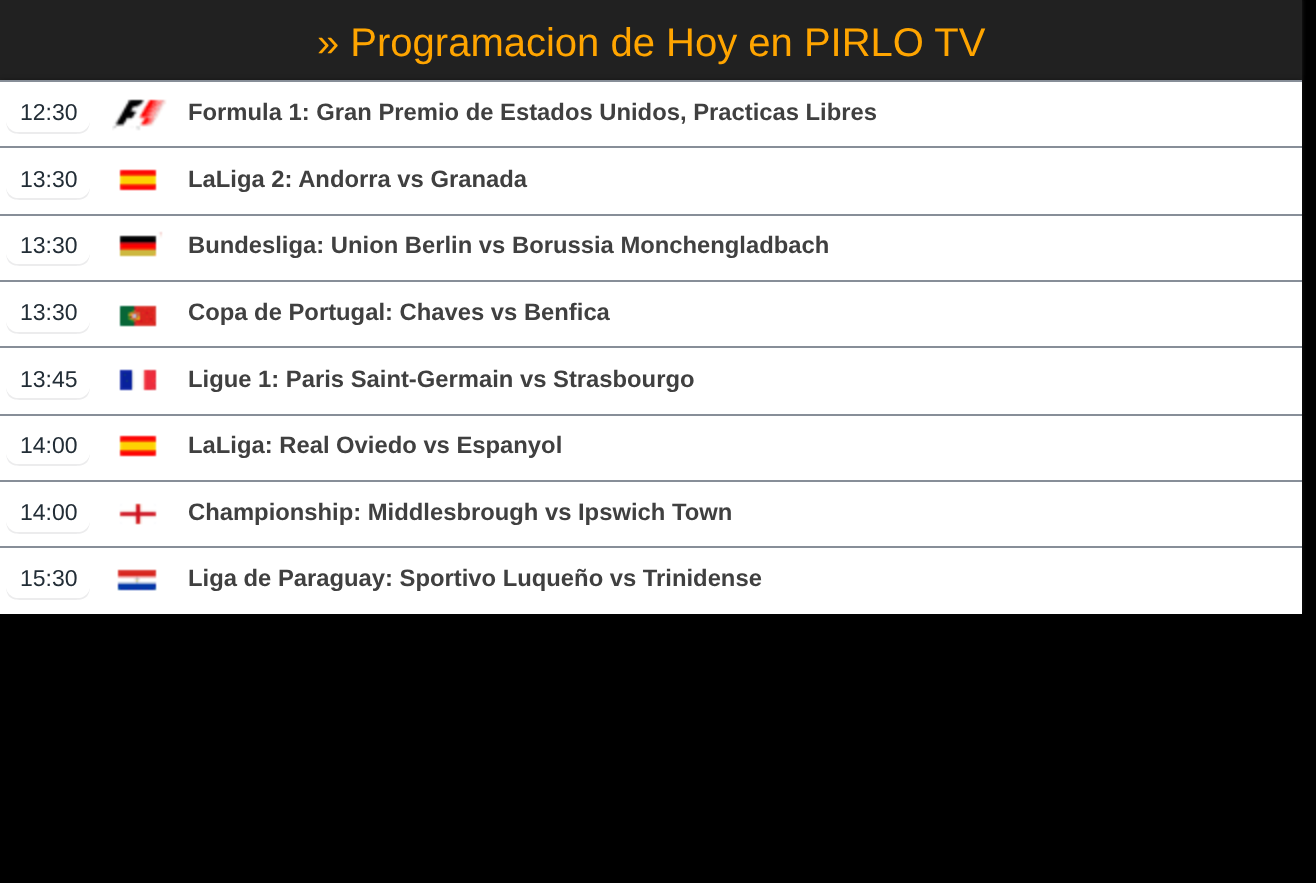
(async () => {
const canvas = document.querySelector("canvas")
canvas.width = 1316
canvas.height = 883
const c = canvas.getContext("2d")
c.miterLimit = 4
c.fontKerning = "normal"
function T(s,x,y){c.fillText(s,x,y)}
function R(x,y,w,h){c.fillRect(x,y,w,h)}
function Q(x,y,w,h,r){c.beginPath();c.roundRect(x,y,w,h,r);c.fill()}
async function I(src,x,y,w,h){const img=new Image();img.src=src;await img.decode();c.drawImage(img,x,y,w,h)}
let path
c.fillStyle="#000"
R(0,0,1316,883)
c.fillStyle="#212121"
c.filter="blur(2px)"
c.beginPath()
c.rect(0,-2,1302,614)
c.fill()
c.filter="none"
R(0,0,1302,80)
c.font="40px Liberation Sans"
c.fillStyle="#ffa500"
T("» Programacion de Hoy en PIRLO TV",317,56)
c.fillStyle="#000000ba"
c.filter="blur(3px)"
c.beginPath()
c.rect(0,82,1302,534)
c.fill()
c.filter="none"
c.fillStyle="#fff"
R(0,82,1302,64)
c.fillStyle="#878e98"
R(0,80,1302,2)
c.fillStyle="#ececed"
path = new Path2D("M6 119c0 16 9 15 22 15h40c13 0 22 1 22-15c0 7-6 13-13 13h-58c-7 0-13-6-13-13z")
c.fill(path)
c.fillStyle="#fff"
Q(6,96,84,36,12)
c.font="23px Liberation Sans"
c.fillStyle="#222d36"
T("12:30",20,120)
await I("1.png",112,99,55,32)
c.font="bold 23.8px Liberation Sans"
c.fillStyle="#404040"
T("Formula 1: Gran Premio de Estados Unidos, Practicas Libres",188,120)
c.fillStyle="#fff"
R(0,148,1302,66)
c.fillStyle="#878e98"
R(0,146,1302,2)
c.fillStyle="#ececed"
path = new Path2D("M6 185c0 16 9 15 22 15h40c13 0 22 1 22-15c0 7-6 13-13 13h-58c-7 0-13-6-13-13z")
c.fill(path)
c.fillStyle="#fff"
Q(6,162,84,36,12)
c.font="23px Liberation Sans"
c.fillStyle="#222d36"
T("13:30",20,187)
await I("2.png",119,169,38,22)
c.font="bold 23.8px Liberation Sans"
c.fillStyle="#404040"
T("LaLiga 2: Andorra vs Granada",188,187)
c.fillStyle="#fff"
R(0,216,1302,64)
c.fillStyle="#878e98"
R(0,214,1302,2)
c.fillStyle="#ececed"
path = new Path2D("M6 251c0 16 9 15 22 15h40c13 0 22 1 22-15c0 7-6 13-13 13h-58c-7 0-13-6-13-13z")
c.fill(path)
c.fillStyle="#fff"
Q(6,228,84,36,12)
c.font="23px Liberation Sans"
c.fillStyle="#222d36"
T("13:30",20,253)
await I("3.png",119,231,44,26)
c.font="bold 23.8px Liberation Sans"
c.fillStyle="#404040"
T("Bundesliga: Union Berlin vs Borussia Monchengladbach",188,253)
c.fillStyle="#fff"
R(0,282,1302,64)
c.fillStyle="#878e98"
R(0,280,1302,2)
c.fillStyle="#ececed"
path = new Path2D("M6 319c0 16 9 15 22 15h40c13 0 22 1 22-15c0 7-6 13-13 13h-58c-7 0-13-6-13-13z")
c.fill(path)
c.fillStyle="#fff"
Q(6,296,84,36,12)
c.font="23px Liberation Sans"
c.fillStyle="#222d36"
T("13:30",20,320)
await I("4.png",119,305,38,22)
c.font="bold 23.8px Liberation Sans"
c.fillStyle="#404040"
T("Copa de Portugal: Chaves vs Benfica",188,320)
c.fillStyle="#fff"
R(0,348,1302,66)
c.fillStyle="#878e98"
R(0,346,1302,2)
c.fillStyle="#ececed"
path = new Path2D("M6 385c0 16 9 15 22 15h40c13 0 22 1 22-15c0 7-6 13-13 13h-58c-7 0-13-6-13-13z")
c.fill(path)
c.fillStyle="#fff"
Q(6,362,84,36,12)
c.font="23px Liberation Sans"
c.fillStyle="#222d36"
T("13:45",20,387)
await I("5.png",119,369,38,22)
c.font="bold 23.8px Liberation Sans"
c.fillStyle="#404040"
T("Ligue 1: Paris Saint-Germain vs Strasbourgo",188,387)
c.fillStyle="#fff"
R(0,416,1302,64)
c.fillStyle="#878e98"
R(0,414,1302,2)
c.fillStyle="#ececed"
path = new Path2D("M6 451c0 16 9 15 22 15h40c13 0 22 1 22-15c0 7-6 13-13 13h-58c-7 0-13-6-13-13z")
c.fill(path)
c.fillStyle="#fff"
Q(6,428,84,36,12)
c.font="23px Liberation Sans"
c.fillStyle="#222d36"
T("14:00",20,453)
await I("2.png",119,435,38,22)
c.font="bold 23.8px Liberation Sans"
c.fillStyle="#404040"
T("LaLiga: Real Oviedo vs Espanyol",188,453)
c.fillStyle="#fff"
R(0,482,1302,64)
c.fillStyle="#878e98"
R(0,480,1302,2)
c.fillStyle="#ececed"
path = new Path2D("M6 519c0 16 9 15 22 15h40c13 0 22 1 22-15c0 7-6 13-13 13h-58c-7 0-13-6-13-13z")
c.fill(path)
c.fillStyle="#fff"
Q(6,496,84,36,12)
c.font="23px Liberation Sans"
c.fillStyle="#222d36"
T("14:00",20,520)
await I("6.png",119,503,38,22)
c.font="bold 23.8px Liberation Sans"
c.fillStyle="#404040"
T("Championship: Middlesbrough vs Ipswich Town",188,520)
c.fillStyle="#fff"
R(0,548,1302,66)
c.fillStyle="#878e98"
R(0,546,1302,2)
c.fillStyle="#ececed"
path = new Path2D("M6 585c0 16 9 15 22 15h40c13 0 22 1 22-15c0 7-6 13-13 13h-58c-7 0-13-6-13-13z")
c.fill(path)
c.fillStyle="#fff"
Q(6,562,84,36,12)
c.font="23px Liberation Sans"
c.fillStyle="#222d36"
T("15:30",20,586)
await I("7.png",117,569,40,22)
c.font="bold 23.8px Liberation Sans"
c.fillStyle="#404040"
T("Liga de Paraguay: Sportivo Luqueño vs Trinidense",188,586)
})()
